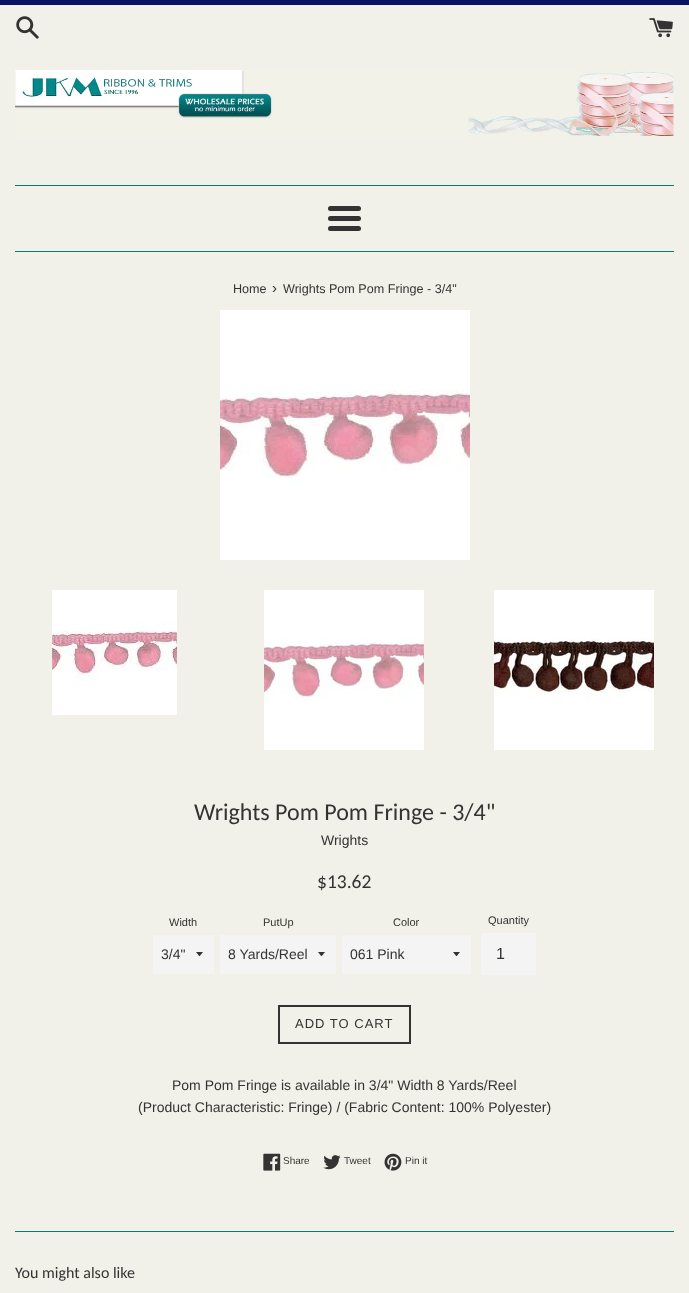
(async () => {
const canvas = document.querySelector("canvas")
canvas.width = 689
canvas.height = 1293
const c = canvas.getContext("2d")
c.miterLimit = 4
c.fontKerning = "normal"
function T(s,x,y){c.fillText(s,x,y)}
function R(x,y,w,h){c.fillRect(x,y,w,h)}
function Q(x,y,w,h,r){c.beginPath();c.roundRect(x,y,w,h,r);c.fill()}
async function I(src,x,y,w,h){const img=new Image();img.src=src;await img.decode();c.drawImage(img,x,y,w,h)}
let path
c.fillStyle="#f2f1e9"
R(0,0,689,1293)
c.fillStyle="#061463"
R(0,0,689,5)
await I("1.png",16,16,23,23)
await I("2.png",649,18,24,20)
await I("3.png",15,70,659,68)
c.fillStyle="#087974"
R(15,185,659,1)
c.fillStyle="#333"
Q(328,206,33,5,2.5)
Q(328,216,33,5,2.5)
Q(328,226,33,5,2.5)
c.fillStyle="#087974"
R(15,251,659,1)
c.font="12.6px Liberation Sans"
c.fillStyle="#333"
T("Home",233,293)
c.font="15px Liberation Sans"
T("›",272,293)
c.font="12.6px Liberation Sans"
T("Wrights Pom Pom Fringe - 3/4\"",283,293)
await I("4.png",220,310,250,250)
await I("5.png",52,590,125,125)
await I("6.png",264,590,160,160)
await I("7.png",494,590,160,160)
c.font="24px Carlito"
T("Wrights Pom Pom Fringe - 3/4\"",194,820)
c.font="14px Liberation Sans"
T("Wrights",321,845)
c.font="19.5px Carlito"
T("$13.62",317,888)
c.font="11px Liberation Sans"
T("Width",169,926)
c.fillStyle="#f4f4f4"
R(153,935,61,39)
c.fillStyle="#333"
path = new Path2D("M196 952c4.5 5.5 2.5 5.5 7 0z")
c.fill(path)
c.font="14px Liberation Sans"
T("3/4\"",161,959)
c.font="11px Liberation Sans"
T("PutUp",263,926)
c.fillStyle="#f4f4f4"
R(220,935,116,39)
c.fillStyle="#333"
path = new Path2D("M318 952c4.5 5.5 2.5 5.5 7 0z")
c.fill(path)
c.font="14px Liberation Sans"
T("8 Yards/Reel",228,959)
c.font="11px Liberation Sans"
T("Color",393,926)
c.fillStyle="#f4f4f4"
R(342,935,129,39)
c.fillStyle="#333"
path = new Path2D("M453 952c4.5 5.5 2.5 5.5 7 0z")
c.fill(path)
c.font="14px Liberation Sans"
T("061 Pink",350,959)
c.font="11px Liberation Sans"
T("Quantity",488,924)
c.fillStyle="#f4f4f4"
R(481,933,55,42)
c.font="16px Liberation Sans"
c.fillStyle="#333"
T("1",496,959)
c.strokeStyle="#333"
c.lineWidth=2
c.strokeRect(279,1006,131,37)
c.letterSpacing="1px"
c.font="13px Liberation Sans"
T("ADD TO CART",295,1028)
c.letterSpacing="0px"
c.font="14px Liberation Sans"
T("Pom Pom Fringe is available in 3/4\" Width 8 Yards/Reel",172,1090)
T("(Product Characteristic: Fringe) / (Fabric Content: 100% Polyester)",138,1112)
await I("8.png",263,1153,18,18)
c.font="10px Liberation Sans"
T("Share",283,1164)
await I("9.png",323,1155,18,15)
T("Tweet",344,1164)
await I("10.png",384,1153,18,18)
T("Pin it",405,1164)
c.fillStyle="#087974"
R(15,1231,659,1)
c.font="16px Carlito"
c.fillStyle="#333"
T("You might also like",15,1278)
})()
